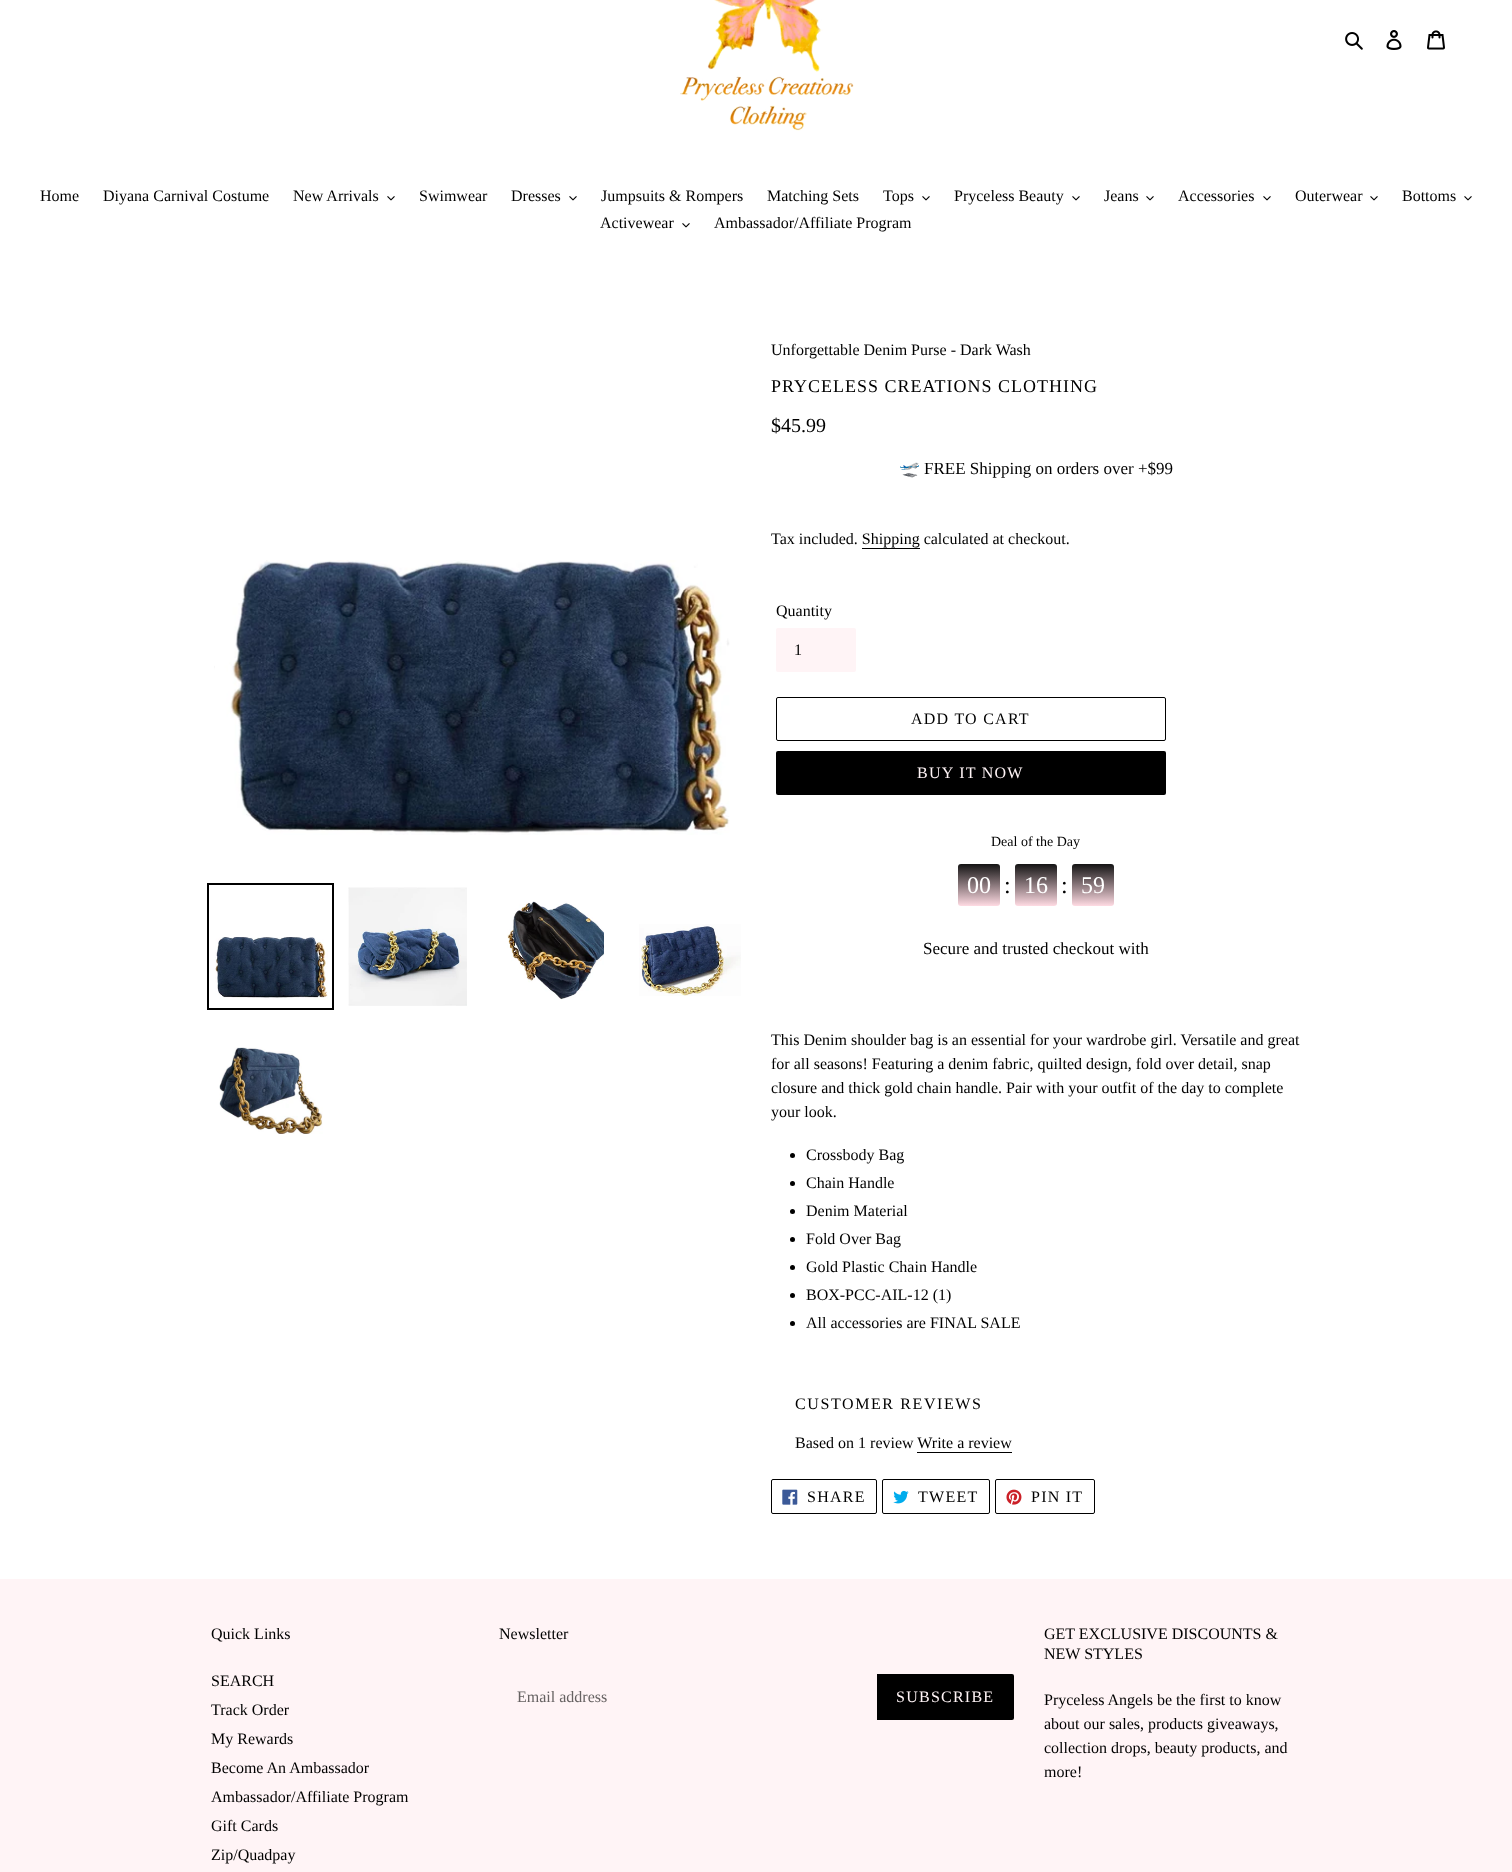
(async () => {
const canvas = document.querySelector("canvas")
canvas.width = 1512
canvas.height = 1872
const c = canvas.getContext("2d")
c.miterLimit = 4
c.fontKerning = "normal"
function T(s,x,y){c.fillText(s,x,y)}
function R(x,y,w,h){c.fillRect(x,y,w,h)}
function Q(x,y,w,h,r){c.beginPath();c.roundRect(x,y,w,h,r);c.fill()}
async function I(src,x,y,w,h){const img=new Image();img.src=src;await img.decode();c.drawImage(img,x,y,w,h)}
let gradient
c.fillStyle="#fff"
R(0,0,1512,1872)
await I("1.png",680,0,174,131)
await I("2.png",1345,32,18,18)
await I("3.png",1386,30,16,20)
await I("4.png",1427,30,18,20)
c.font="16px Liberation Serif"
c.fillStyle="#000"
T("Home",40,201)
T("Diyana Carnival Costume",103,201)
T("New Arrivals",293,201)
await I("5.png",387,196,8,5)
T("Swimwear",419,201)
T("Dresses",511,201)
await I("5.png",569,196,8,5)
T("Jumpsuits & Rompers",601,201)
T("Matching Sets",767,201)
T("Tops",883,201)
await I("5.png",922,196,8,5)
T("Pryceless Beauty",954,201)
await I("5.png",1072,196,8,5)
T("Jeans",1104,201)
await I("5.png",1146,196,8,5)
T("Accessories",1178,201)
await I("5.png",1263,196,8,5)
T("Outerwear",1295,201)
await I("5.png",1370,196,8,5)
T("Bottoms",1402,201)
await I("5.png",1464,196,8,5)
T("Activewear",600,228)
await I("5.png",682,223,8,5)
T("Ambassador/Affiliate Program",714,228)
await I("6.png",214,560,516,275)
c.strokeStyle="#000"
c.lineWidth=2
c.strokeRect(208,884,125,125)
await I("7.png",215,937,113,63)
await I("8.png",348,887,119,119)
await I("9.png",507,901,97,99)
await I("10.png",639,924,102,72)
await I("11.png",219,1047,104,87)
T("Unforgettable Denim Purse - Dark Wash",771,355)
c.letterSpacing="1px"
c.font="18px Liberation Serif"
T("PRYCELESS CREATIONS CLOTHING",771,392)
c.letterSpacing="0px"
c.font="20px Liberation Serif"
T("$45.99",771,432)
c.font="17px Noto Color Emoji"
T("🛫",899,474)
c.font="17px Liberation Serif"
T("FREE Shipping on orders over +$99",924,474)
c.font="16px Liberation Serif"
T("Tax included. Shipping calculated at checkout.",771,544)
R(862,548,58,1)
T("Quantity",776,616)
c.fillStyle="#fff4f6"
Q(776,628,80,44,2)
c.fillStyle="#000"
T("1",794,655)
c.beginPath()
c.roundRect(776.5,697.5,389,43,1.5)
c.lineWidth=1
c.stroke()
c.letterSpacing="1.25px"
T("ADD TO CART",911,724)
Q(776,751,390,44,2)
c.fillStyle="#fff4f6"
T("BUY IT NOW",917,778)
c.letterSpacing="0px"
c.font="14px Liberation Serif"
c.fillStyle="#000"
T("Deal of the Day",991,846)
gradient = c.createLinearGradient(979,864,979,906)
gradient.addColorStop(0,"#141414")
gradient.addColorStop(1,"#ffdbe3")
c.fillStyle = gradient
Q(958,864,42,42,3)
c.font="24px Liberation Serif"
c.fillStyle="#fff"
T("00",967,893)
c.fillStyle="#000"
T(":",1004,893)
gradient = c.createLinearGradient(1036,864,1036,906)
gradient.addColorStop(0,"#141414")
gradient.addColorStop(1,"#ffdbe3")
c.fillStyle = gradient
Q(1015,864,42,42,3)
c.fillStyle="#fff"
T("16",1024,893)
c.fillStyle="#000"
T(":",1061,893)
gradient = c.createLinearGradient(1093,864,1093,906)
gradient.addColorStop(0,"#141414")
gradient.addColorStop(1,"#ffdbe3")
c.fillStyle = gradient
Q(1072,864,42,42,3)
c.fillStyle="#fff"
T("59",1081,893)
c.font="17px Liberation Serif"
c.fillStyle="#000"
T("Secure and trusted checkout with",923,954)
c.font="16px Liberation Serif"
T("This Denim shoulder bag is an essential for your wardrobe girl. Versatile and great",771,1045)
T("for all seasons! Featuring a denim fabric, quilted design, fold over detail, snap",771,1069)
T("closure and thick gold chain handle. Pair with your outfit of the day to complete",771,1093)
T("your look.",771,1117)
c.beginPath()
c.arc(792.5,1155.5,2.5,0,7)
c.fill()
T("Crossbody Bag",806,1160)
c.beginPath()
c.arc(792.5,1183.5,2.5,0,7)
c.fill()
T("Chain Handle",806,1188)
c.beginPath()
c.arc(792.5,1211.5,2.5,0,7)
c.fill()
T("Denim Material",806,1216)
c.beginPath()
c.arc(792.5,1239.5,2.5,0,7)
c.fill()
T("Fold Over Bag",806,1244)
c.beginPath()
c.arc(792.5,1267.5,2.5,0,7)
c.fill()
T("Gold Plastic Chain Handle",806,1272)
c.beginPath()
c.arc(792.5,1295.5,2.5,0,7)
c.fill()
T("BOX-PCC-AIL-12 (1)",806,1300)
c.beginPath()
c.arc(792.5,1323.5,2.5,0,7)
c.fill()
T("All accessories are FINAL SALE",806,1328)
c.letterSpacing="1.6px"
T("CUSTOMER REVIEWS",795,1409)
c.letterSpacing="0px"
T("Based on 1 review Write a review",795,1448)
R(917,1452,95,1)
c.beginPath()
c.roundRect(771.5,1479.5,105,34,1.5)
c.stroke()
await I("12.png",782,1489,16,16)
c.letterSpacing="1.25px"
T("SHARE",807,1502)
c.beginPath()
c.roundRect(882.5,1479.5,107,34,1.5)
c.stroke()
await I("13.png",893,1490,16,14)
T("TWEET",918,1502)
c.beginPath()
c.roundRect(995.5,1479.5,99,34,1.5)
c.stroke()
await I("14.png",1006,1489,16,16)
T("PIN IT",1031,1502)
c.fillStyle="#fff4f6"
R(0,1579,1512,293)
c.letterSpacing="0px"
c.fillStyle="#000"
T("Quick Links",211,1639)
T("SEARCH",211,1686)
T("Track Order",211,1715)
T("My Rewards",211,1744)
T("Become An Ambassador",211,1773)
T("Ambassador/Affiliate Program",211,1802)
T("Gift Cards",211,1831)
T("Zip/Quadpay",211,1860)
T("Newsletter",499,1639)
c.fillStyle="#666262"
T("Email address",517,1702)
c.fillStyle="#000"
c.beginPath()
c.roundRect(877,1674,137,46,[0,2,2,0])
c.fill()
c.letterSpacing="1.25px"
c.fillStyle="#fff4f6"
T("SUBSCRIBE",896,1702)
c.letterSpacing="0px"
c.fillStyle="#000"
T("GET EXCLUSIVE DISCOUNTS &",1044,1639)
T("NEW STYLES",1044,1659)
T("Pryceless Angels be the first to know",1044,1705)
T("about our sales, products giveaways,",1044,1729)
T("collection drops, beauty products, and",1044,1753)
T("more!",1044,1777)
})()
